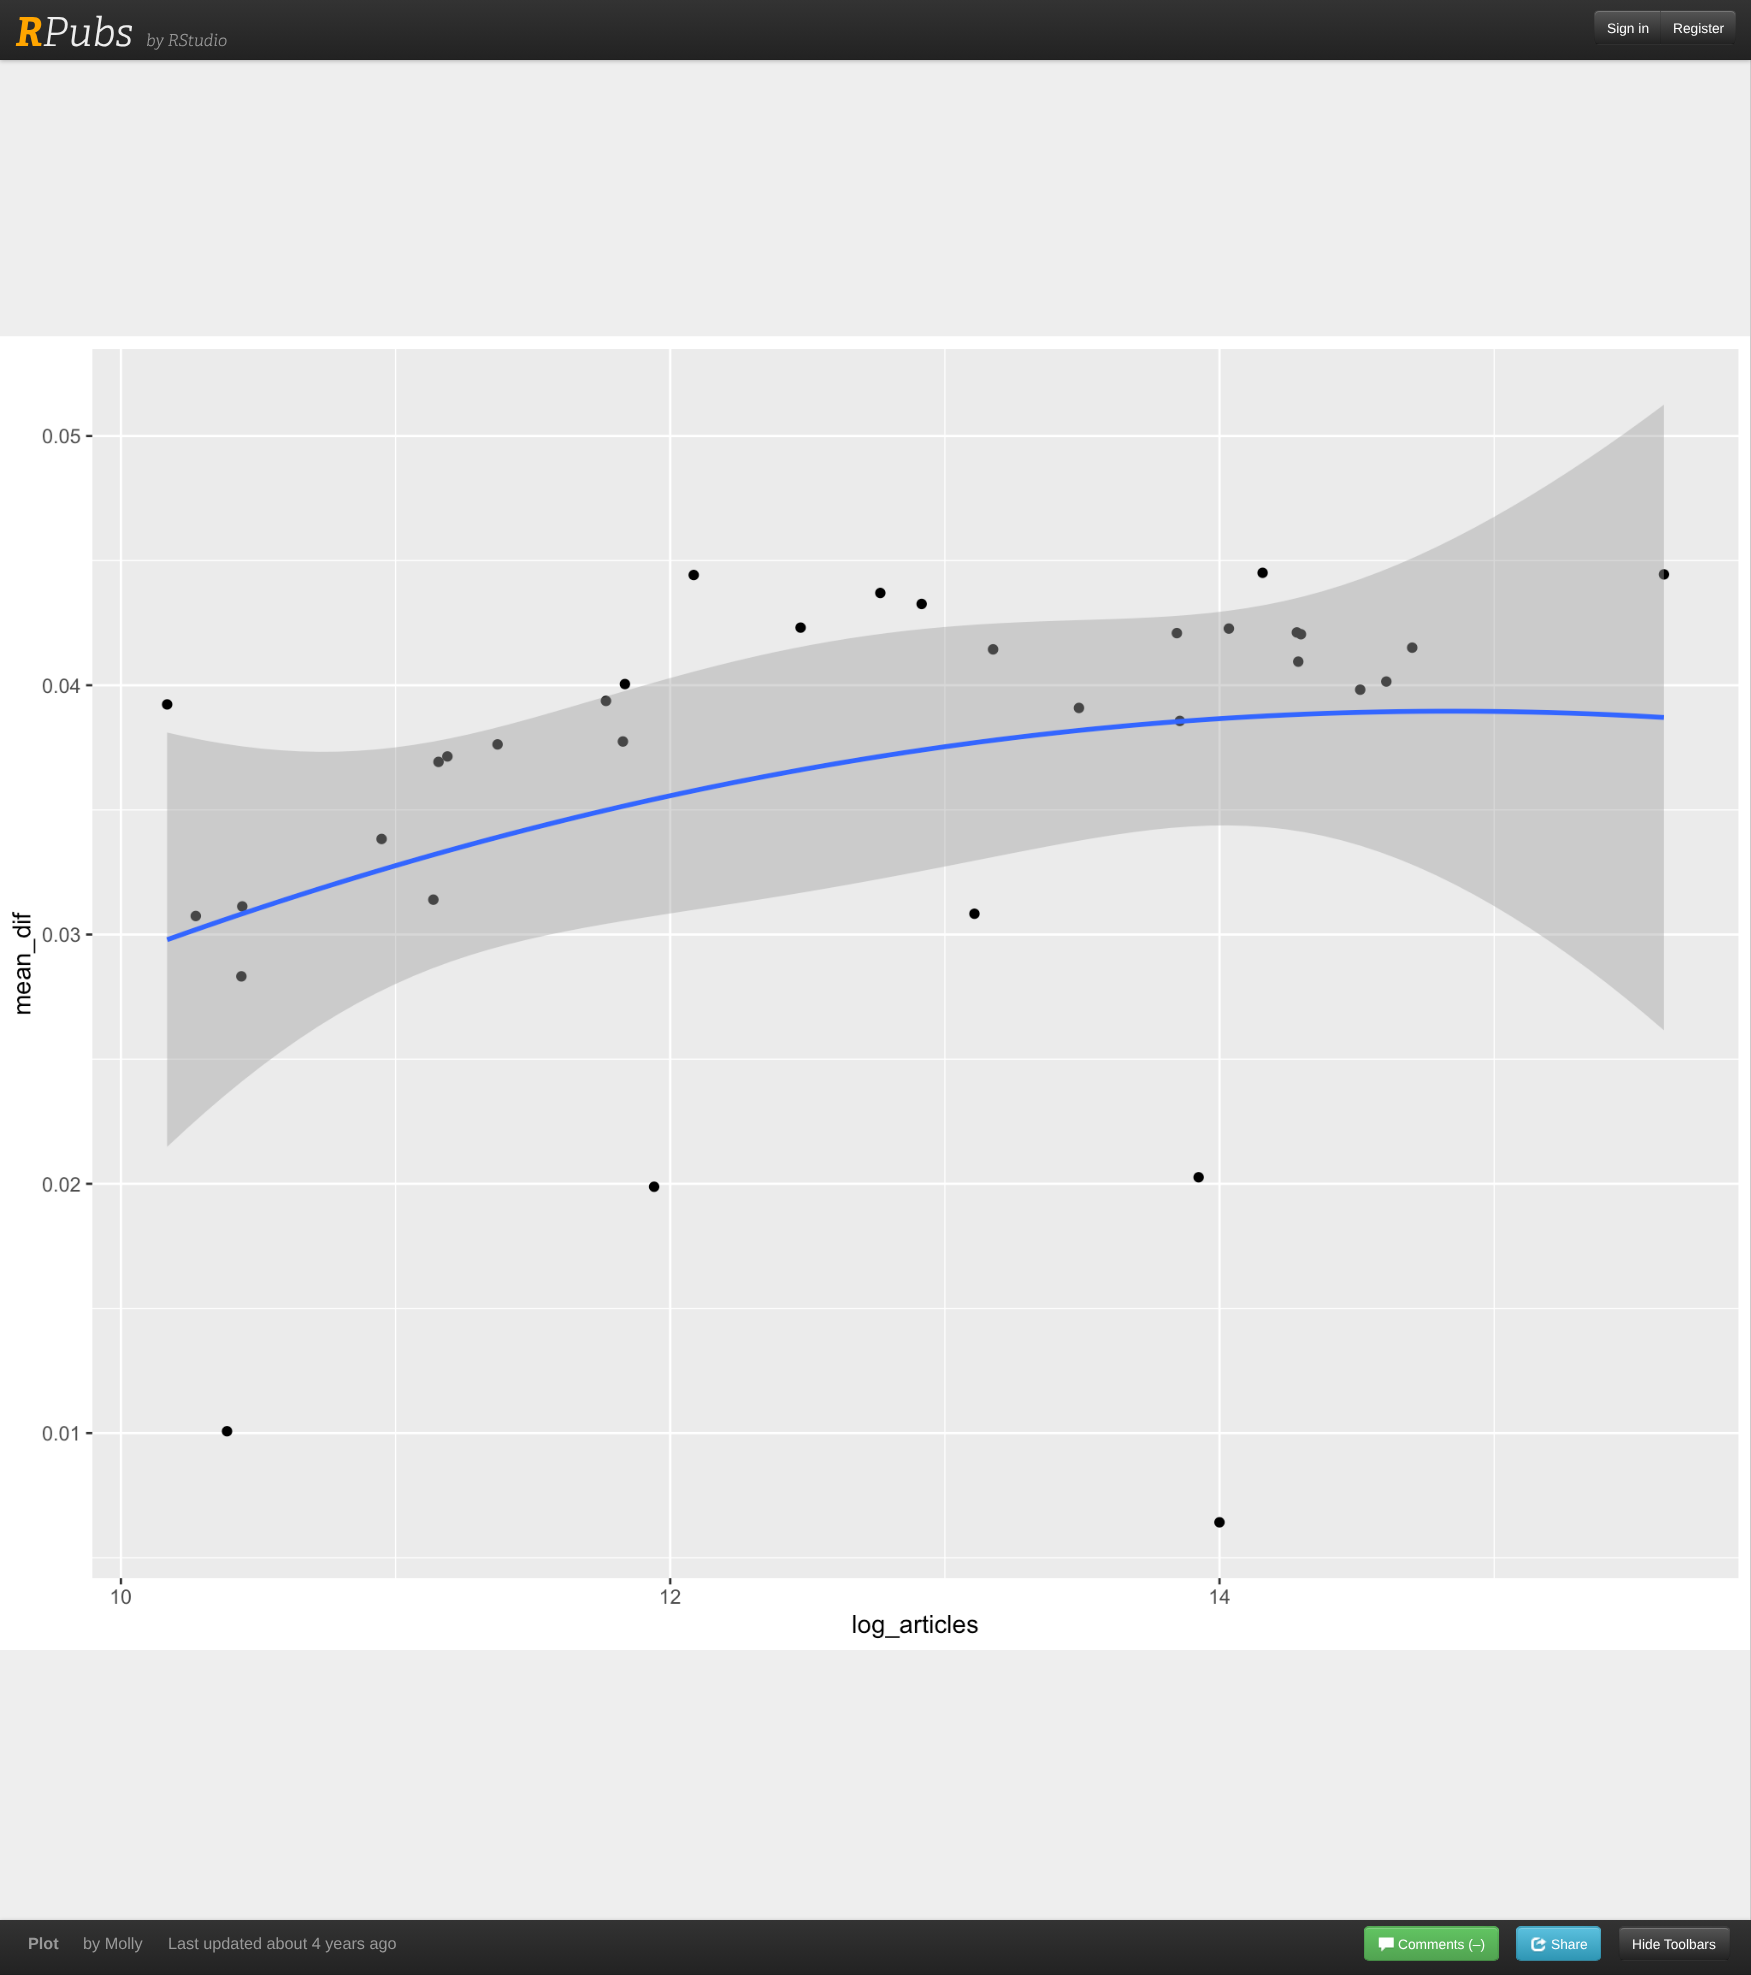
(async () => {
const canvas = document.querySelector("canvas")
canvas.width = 1751
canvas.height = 1975
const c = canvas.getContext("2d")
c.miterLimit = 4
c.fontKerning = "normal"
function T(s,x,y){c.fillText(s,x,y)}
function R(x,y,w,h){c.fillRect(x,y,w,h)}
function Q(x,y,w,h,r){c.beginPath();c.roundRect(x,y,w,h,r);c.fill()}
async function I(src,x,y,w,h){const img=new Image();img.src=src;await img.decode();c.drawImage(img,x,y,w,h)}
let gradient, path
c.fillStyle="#eee"
R(0,0,1751,1975)
c.fillStyle="#ccc"
R(1750,60,1,1865)
c.fillStyle="#00000040"
c.filter="blur(2px)"
c.beginPath()
c.rect(0,1,1751,60)
c.fill()
c.filter="none"
gradient = c.createLinearGradient(876,0,876,60)
gradient.addColorStop(0,"#333")
gradient.addColorStop(1,"#222")
c.fillStyle = gradient
R(0,0,1751,59)
c.fillStyle="#1f1f1f"
R(0,59,1751,1)
c.font="italic bold 40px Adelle"
c.fillStyle="#ffa500"
T("R",15,46)
c.font="italic 300 40px Adelle"
c.fillStyle="#eee"
T("Pubs",42,46)
c.font="italic 300 16.5px Adelle"
c.fillStyle="#999"
T("by RStudio",146,46)
c.fillStyle="#414141"
c.beginPath()
c.roundRect(1594,10,67,35,[5,0,0,5])
c.fill()
c.save()
c.beginPath()
c.roundRect(1594,10,67,35,[5,0,0,5])
c.clip()
gradient = c.createLinearGradient(1628,11,1628,44)
gradient.addColorStop(0,"#555")
gradient.addColorStop(1,"#222")
c.fillStyle = gradient
R(1594,11,66,33)
c.restore()
c.fillStyle="#ffffff33"
path = new Path2D("M1599 12h61v-1h-61c-2 0-4 2-4 4v1c0-2 2-4 4-4z")
c.fill(path)
c.fillStyle="#0000001a"
path = new Path2D("M1599 10c-2 0-3 1-4 2h1l3-1h61l1-1z")
c.fill(path)
c.fillStyle="#00000040"
path = new Path2D("M1599 45h62l-1-1h-61l-3-1h-1c1 1 2 2 4 2z")
c.fill(path)
c.fillStyle="#0000001a"
path = new Path2D("M1595.5 11.5c-1 1-1.5 2-1.5 3.5v25c0 1.5 .5 2.5 1.5 3.5l.5-1c-.5-.5-1-1.5-1-2.5v-25c0-1 .5-2 1-2.5z")
c.fill(path)
c.font="13.75px Liberation Sans"
c.fillStyle="#fff"
T("Sign in",1607,33)
c.fillStyle="#414141"
c.beginPath()
c.roundRect(1660,10,76,35,[0,5,5,0])
c.fill()
c.save()
c.beginPath()
c.roundRect(1660,10,76,35,[0,5,5,0])
c.clip()
gradient = c.createLinearGradient(1698,11,1698,44)
gradient.addColorStop(0,"#555")
gradient.addColorStop(1,"#222")
c.fillStyle = gradient
R(1660,11,76,33)
c.restore()
c.fillStyle="#ffffff33"
path = new Path2D("M1661 12h70c2 0 4 2 4 4v-1c0-2-2-4-4-4h-70z")
c.fill(path)
c.fillStyle="#0000001a"
path = new Path2D("M1660 10l1 1h70l3 1h1c-1-1-2-2-4-2z")
c.fill(path)
path = new Path2D("M1734.5 11.5c1 1 1.5 2 1.5 3.5v25c0 1.5-.5 2.5-1.5 3.5l-.5-1c.5-.5 1-1.5 1-2.5v-25c0-1-.5-2-1-2.5z")
c.fill(path)
c.fillStyle="#00000040"
path = new Path2D("M1731 45c2 0 3-1 4-2h-1l-3 1h-70l-1 1z")
c.fill(path)
c.fillStyle="#0000001a"
path = new Path2D("M1660 10v35l1-1v-33z")
c.fill(path)
c.fillStyle="#fff"
T("Register",1673,33)
await I("1.png",0,336,1750,1314)
c.fillStyle="#00000040"
c.filter="blur(2px)"
c.beginPath()
c.rect(0,1921,1751,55)
c.fill()
c.filter="none"
gradient = c.createLinearGradient(876,1920,876,1975)
gradient.addColorStop(0,"#333")
gradient.addColorStop(1,"#222")
c.fillStyle = gradient
R(0,1920,1751,54)
c.fillStyle="#1f1f1f"
R(0,1974,1751,1)
c.font="bold 16.25px Liberation Sans"
c.fillStyle="#999"
T("Plot",28,1949)
c.font="16.25px Liberation Sans"
T("by Molly",83,1949)
T("Last updated about 4 years ago",168,1949)
c.fillStyle="#5bb75b"
Q(1364,1926,135,35,5)
c.save()
c.beginPath()
c.roundRect(1364,1926,135,35,5)
c.clip()
gradient = c.createLinearGradient(1431,1928,1431,1960)
gradient.addColorStop(0,"#62c462")
gradient.addColorStop(1,"#51a351")
c.fillStyle = gradient
R(1364,1928,135,32)
c.restore()
c.fillStyle="#ffffff33"
path = new Path2D("M1369 1929h126c2 1 3 3 3 5v-2c0-2-2-4-4-4h-125c-2 0-4 2-4 4c0-2 2-3 4-3zm129 24v5z")
c.fill(path,"evenodd")
path = new Path2D("M1497 1959.5l-3 1h-104.5h-20.5l-3.5-1")
c.strokeStyle="#00000040"
c.lineWidth=1.2
c.stroke(path)
path = new Path2D("M1365.5 1959.5c-2.5-3-1-8.5-1-11.5c0-26-3.5-21 25-21h83.5c28.5 0 25-5 25 21c0 3 1.5 8.5-1 11.5")
c.strokeStyle="#0000001a"
c.stroke(path)
await I("2.png",1378,1937,16,16)
c.font="13.75px Liberation Sans"
c.fillStyle="#fff"
T("Comments (–)",1398,1949)
c.fillStyle="#49afcd"
Q(1516,1926,85,35,5)
c.save()
c.beginPath()
c.roundRect(1516,1926,85,35,5)
c.clip()
gradient = c.createLinearGradient(1559,1928,1559,1960)
gradient.addColorStop(0,"#5bc0de")
gradient.addColorStop(1,"#2f96b4")
c.fillStyle = gradient
R(1516,1928,85,32)
c.restore()
c.fillStyle="#7bcce4"
path = new Path2D("M1521 1929h75c2 0 4 1 4 3c0-2-2-4-4-4h-74c-1 0-3 1-3 2z")
c.fill(path)
path = new Path2D("M1599.5 1959.5l-3 1h-75.5l-3-1")
c.strokeStyle="#00000040"
c.stroke(path)
path = new Path2D("M1518 1959.5c-2.5-2.5-1-12.5-1-15.5c0-19-2.5-17 17-17h50c19 0 16.5-2 16.5 17c0 3 1.5 13-1 15.5")
c.strokeStyle="#0000001a"
c.stroke(path)
await I("3.png",1531,1937,16,16)
c.fillStyle="#fff"
T("Share",1551,1949)
c.fillStyle="#414141"
Q(1619,1926,111,35,5)
c.save()
c.beginPath()
c.roundRect(1619,1926,111,35,5)
c.clip()
gradient = c.createLinearGradient(1674,1928,1674,1960)
gradient.addColorStop(0,"#555")
gradient.addColorStop(1,"#222")
c.fillStyle = gradient
R(1619,1928,111,32)
c.restore()
c.fillStyle="#767676"
path = new Path2D("M1624 1929h101c2 0 4 1 4 3c0-2-2-4-4-4h-101c-2 0-4 2-4 4c0-2 2-3 4-3z")
c.fill(path)
path = new Path2D("M1728 1959.5l-2.5 1h-102l-3-1")
c.strokeStyle="#00000040"
c.stroke(path)
path = new Path2D("M1620.5 1959.5c-2.5-3-1-8.5-1-11.5c0-24.5-4-21 21-21h67.5c25.5 0 21.5-3.5 21.5 21c0 3 1.5 8.5-1.5 11.5")
c.strokeStyle="#0000001a"
c.stroke(path)
c.fillStyle="#fff"
T("Hide Toolbars",1632,1949)
})()
